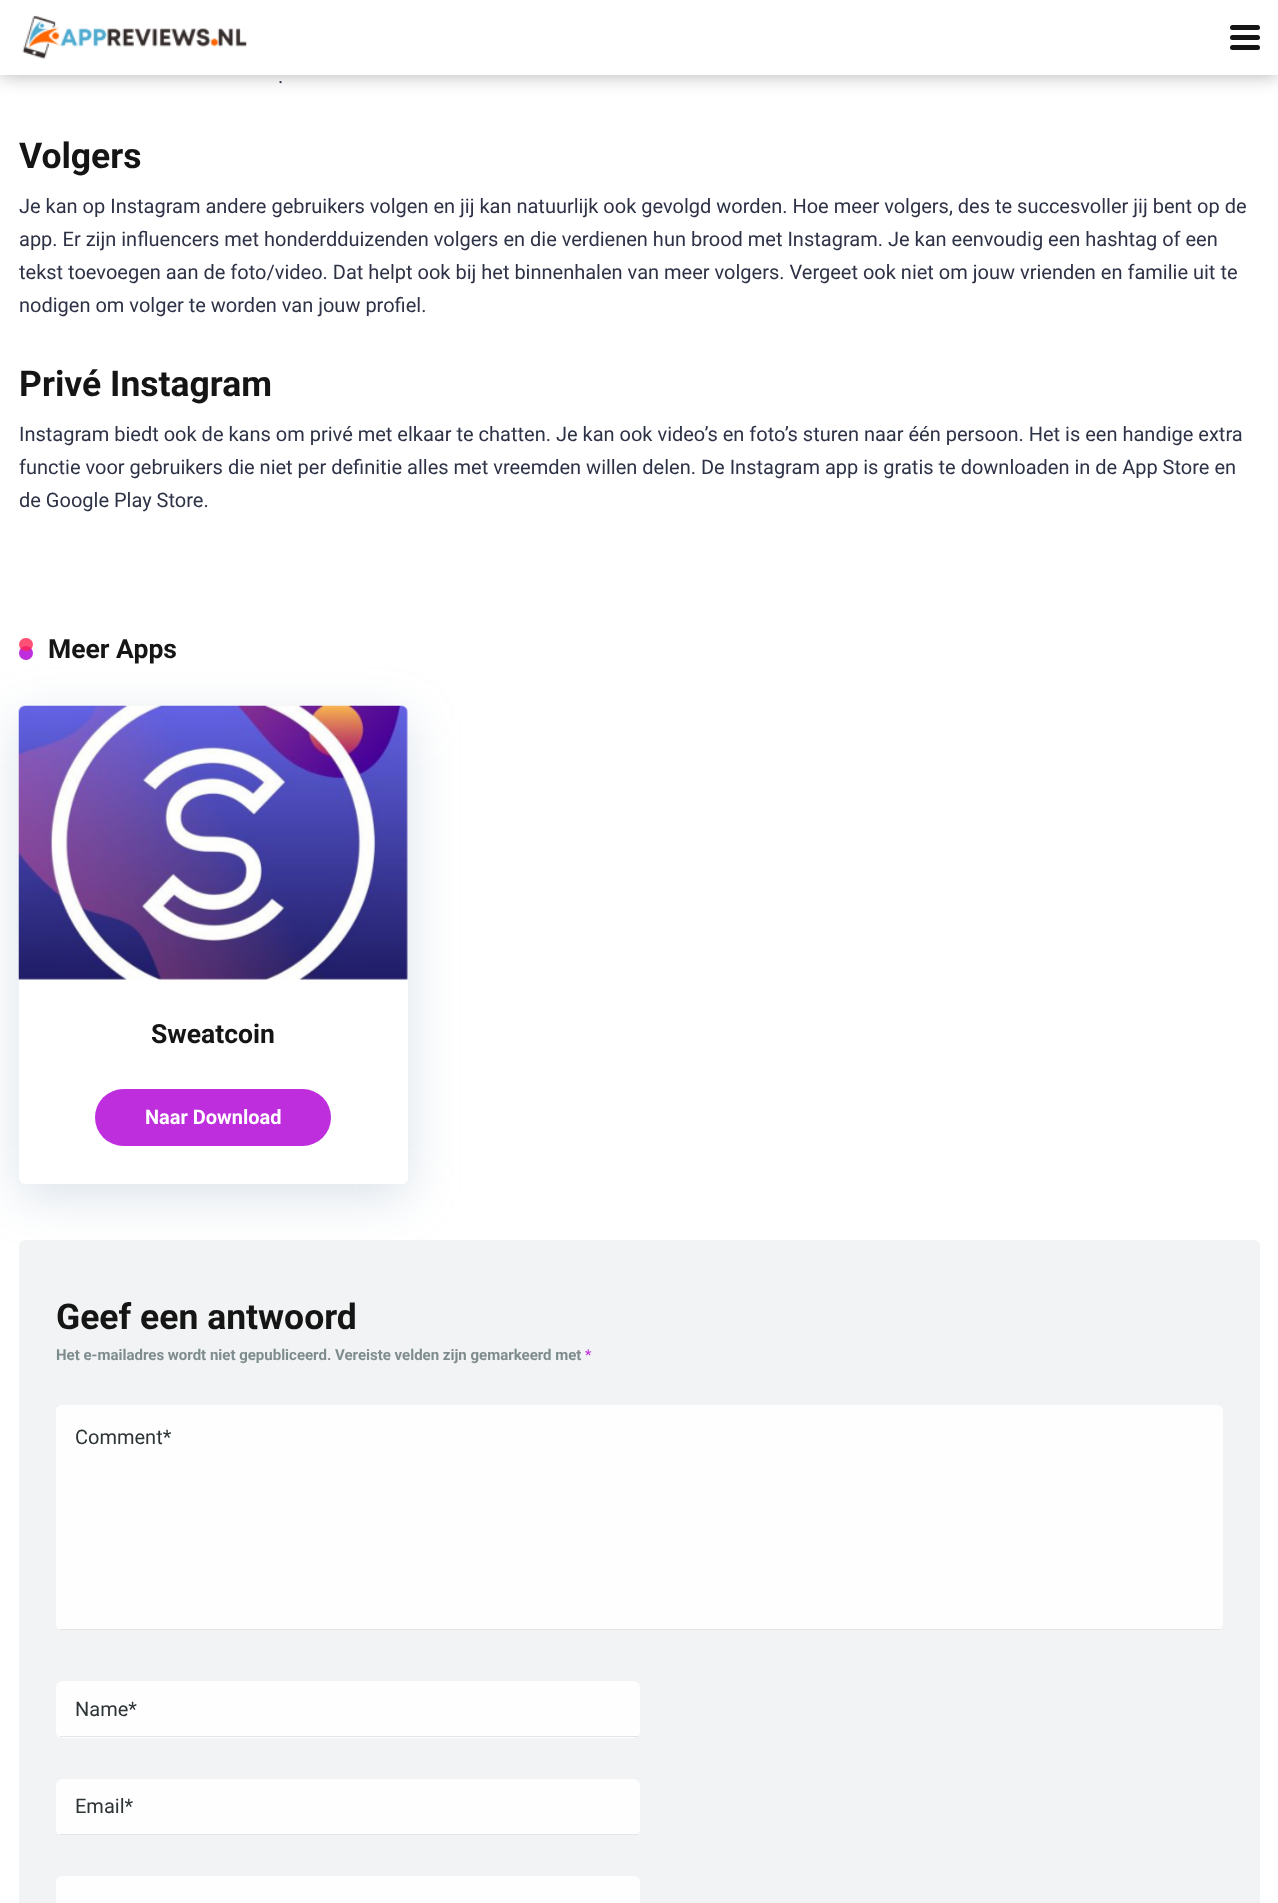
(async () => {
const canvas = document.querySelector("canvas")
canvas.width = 1278
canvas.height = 1903
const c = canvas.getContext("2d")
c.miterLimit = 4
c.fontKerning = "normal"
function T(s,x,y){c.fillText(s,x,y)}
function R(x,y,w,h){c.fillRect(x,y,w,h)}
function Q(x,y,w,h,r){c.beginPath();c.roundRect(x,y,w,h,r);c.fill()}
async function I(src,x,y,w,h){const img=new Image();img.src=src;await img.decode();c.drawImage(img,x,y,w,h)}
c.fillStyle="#fff"
R(0,0,1278,1903)
c.fillStyle="#0000004d"
c.filter="blur(9.5px)"
c.beginPath()
c.rect(0,0,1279,75)
c.fill()
c.filter="none"
c.fillStyle="#fff"
R(0,0,1278,75)
await I("1.png",22,15,225,44)
c.fillStyle="#151515"
Q(1230,25,30,5,2.5)
Q(1230,35,30,5,2.5)
Q(1230,45,30,5,2.5)
c.font="20px Roboto"
c.fillStyle="#2e3246"
T(".",278,83)
c.font="bold 35.5px Roboto"
c.fillStyle="#151515"
T("Volgers",19,168)
c.font="20px Roboto"
c.fillStyle="#2e3246"
T("Je kan op Instagram andere gebruikers volgen en jij kan natuurlijk ook gevolgd worden. Hoe meer volgers, des te succesvoller jij bent op de",19,213)
T("app. Er zijn influencers met honderdduizenden volgers en die verdienen hun brood met Instagram. Je kan eenvoudig een hashtag of een",19,246)
T("tekst toevoegen aan de foto/video. Dat helpt ook bij het binnenhalen van meer volgers. Vergeet ook niet om jouw vrienden en familie uit te",19,279)
T("nodigen om volger te worden van jouw profiel.",19,312)
c.font="bold 35.5px Roboto"
c.fillStyle="#151515"
T("Privé Instagram",19,396)
c.font="20px Roboto"
c.fillStyle="#2e3246"
T("Instagram biedt ook de kans om privé met elkaar te chatten. Je kan ook video’s en foto’s sturen naar één persoon. Het is een handige extra",19,441)
T("functie voor gebruikers die niet per definitie alles met vreemden willen delen. De Instagram app is gratis te downloaden in de App Store en",19,474)
T("de Google Play Store.",19,507)
c.fillStyle="#6d8dad40"
c.filter="blur(25px)"
c.beginPath()
c.roundRect(19,719,389,477,6)
c.fill()
c.filter="none"
c.fillStyle="#be2edd"
c.beginPath()
c.arc(26,653,7,0,7)
c.fill()
c.fillStyle="#ff2453cc"
Q(19,638,14,13,6.5)
c.font="bold 26.5px Roboto"
c.fillStyle="#151515"
T("Meer Apps",48,658)
c.fillStyle="#fff"
Q(19,706,389,478,6)
await I("2.png",18,705,390,275)
c.fillStyle="#151515"
T("Sweatcoin",151,1043)
c.fillStyle="#be2edd"
Q(95,1089,236,57,28.5)
c.font="bold 20px Roboto"
c.fillStyle="#fff"
T("Naar Download",145,1124)
c.fillStyle="#f1f3f4"
Q(19,1240,1241,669,6)
c.font="bold 35.5px Roboto"
c.fillStyle="#151515"
T("Geef een antwoord",56,1329)
c.font="bold 15px Roboto"
c.fillStyle="#7f8c8d"
T("Het e-mailadres wordt niet gepubliceerd. Vereiste velden zijn gemarkeerd met",56,1360)
c.font="15px Roboto"
c.fillStyle="#be2edd"
T("*",585,1360)
c.fillStyle="#fefeff"
Q(56,1405,1167,225,6)
c.fillStyle="#e4e4e4"
R(60,1629,1160,1)
c.font="20px Roboto"
c.fillStyle="#2d3436"
T("Comment*",75,1444)
c.fillStyle="#fefeff"
Q(56,1681,584,57,6)
c.fillStyle="#e4e4e4"
R(60,1736,578,1)
c.fillStyle="#2d3436"
T("Name*",75,1716)
c.fillStyle="#fefeff"
Q(56,1779,584,56,6)
c.fillStyle="#e4e4e4"
R(60,1834,578,1)
c.fillStyle="#2d3436"
T("Email*",75,1813)
c.fillStyle="#fefeff"
Q(56,1876,584,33,6)
})()
